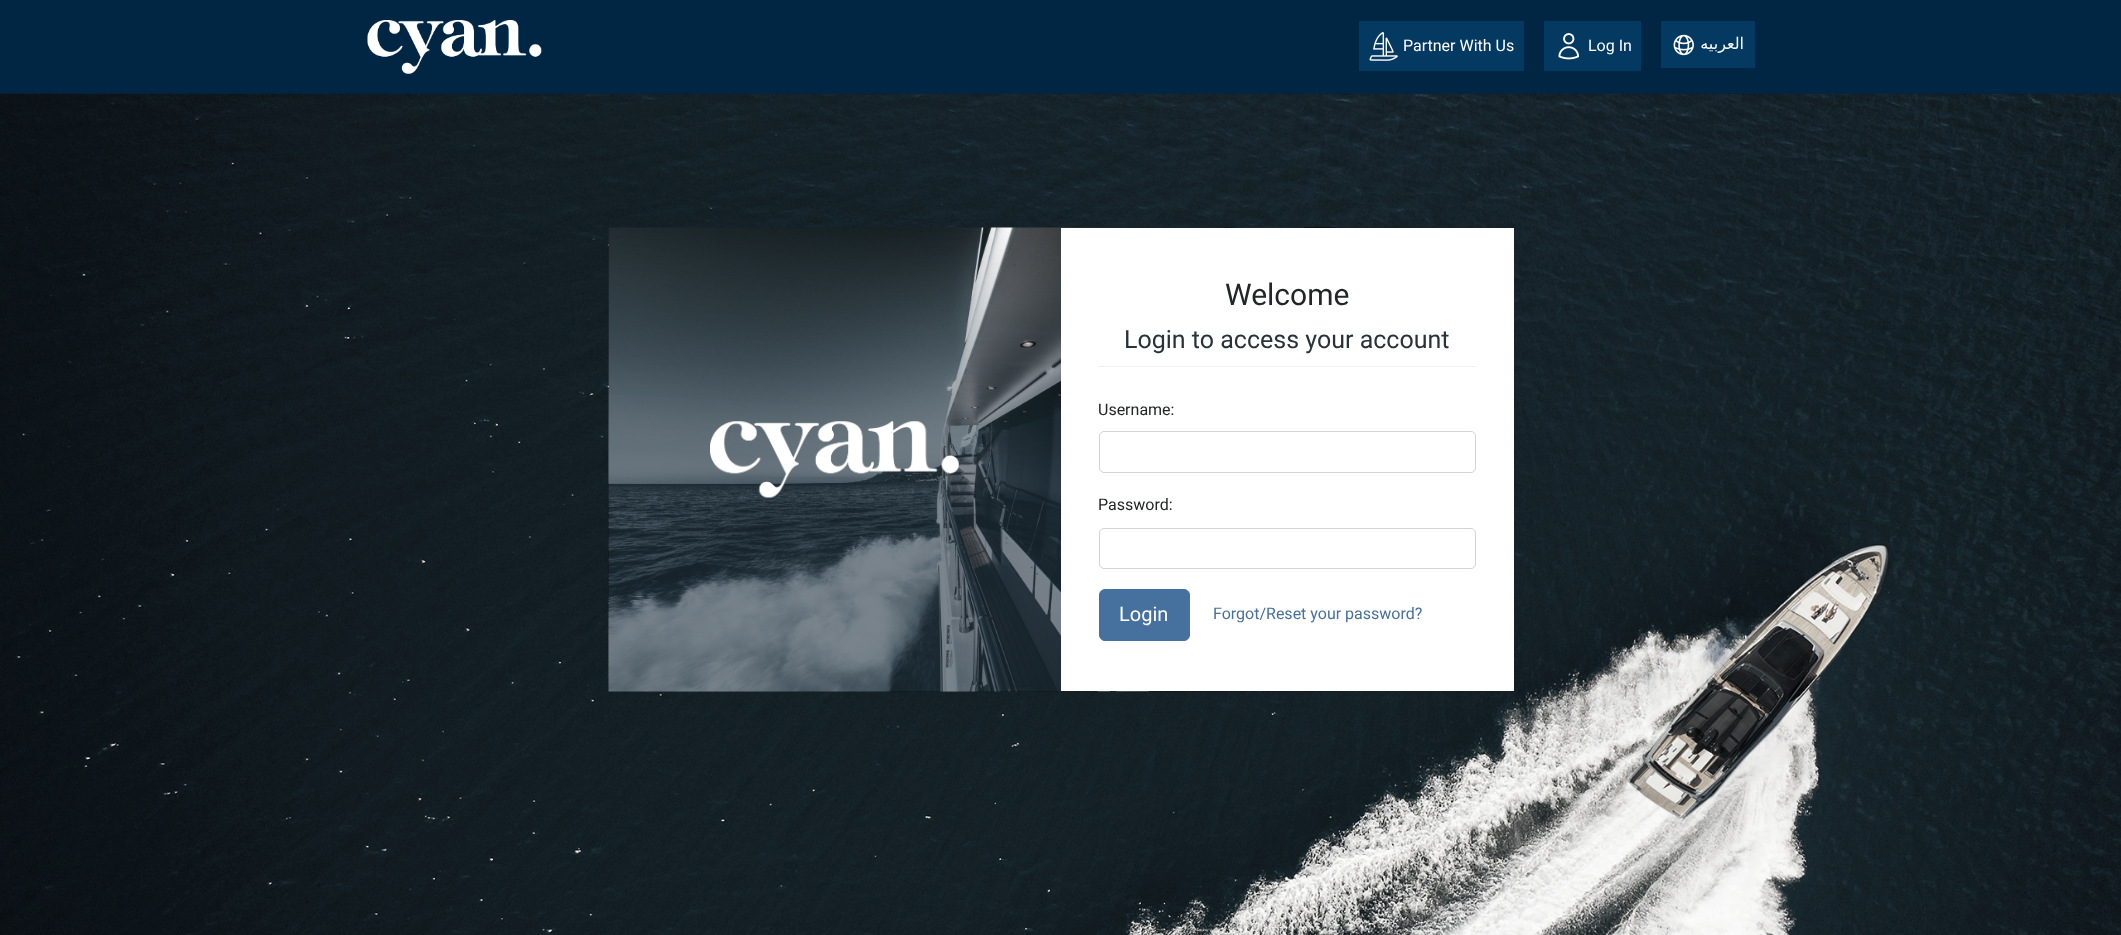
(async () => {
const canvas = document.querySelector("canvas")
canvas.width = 2121
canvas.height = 935
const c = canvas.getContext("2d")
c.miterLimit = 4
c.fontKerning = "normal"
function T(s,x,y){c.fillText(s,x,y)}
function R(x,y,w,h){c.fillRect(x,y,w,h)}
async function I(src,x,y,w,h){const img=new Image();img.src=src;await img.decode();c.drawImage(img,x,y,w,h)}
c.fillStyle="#002643"
R(0,0,2121,935)
await I("1.png",367,20,175,54)
c.fillStyle="#043962"
R(1359,21,165,50)
await I("2.png",1369,32,29,29)
c.font="16px Roboto"
c.fillStyle="#fff"
T("Partner With Us",1403,51)
c.fillStyle="#043962"
R(1544,21,97,50)
await I("3.png",1558,33,22,27)
c.fillStyle="#fff"
T("Log In",1588,51)
c.fillStyle="#043962"
R(1661,21,94,47)
await I("4.png",1673,34,21,22)
c.direction="rtl"
c.font="16px DejaVu Sans"
c.fillStyle="#fff"
T("العربيه",1744,49)
await I("5.png",0,93,2121,842)
await I("6.png",608,227,729,465)
await I("7.png",710,421,249,77)
R(1061,228,453,463)
c.direction="ltr"
c.font="30px Roboto"
c.fillStyle="#232526"
T("Welcome",1225,305)
c.fillStyle="#efefef"
R(1099,366,377,1)
c.font="25px Roboto"
c.fillStyle="#273338"
T("Login to access your account",1124,348)
c.font="16px Roboto"
c.fillStyle="#232526"
T("Username:",1098,415)
c.beginPath()
c.roundRect(1099.5,431.5,376,41,4.5)
c.strokeStyle="#d1d3d5"
c.stroke()
T("Password:",1098,510)
c.beginPath()
c.roundRect(1099.5,528.5,376,40,4.5)
c.stroke()
c.fillStyle="#46709d"
c.beginPath()
c.roundRect(1099.5,589.5,90,51,5.5)
c.fill()
c.strokeStyle="#46709d"
c.stroke()
c.font="20px Roboto"
c.fillStyle="#fff"
T("Login",1119,621)
c.font="16px Roboto"
c.fillStyle="#46709d"
T("Forgot/Reset your password?",1213,619)
})()
